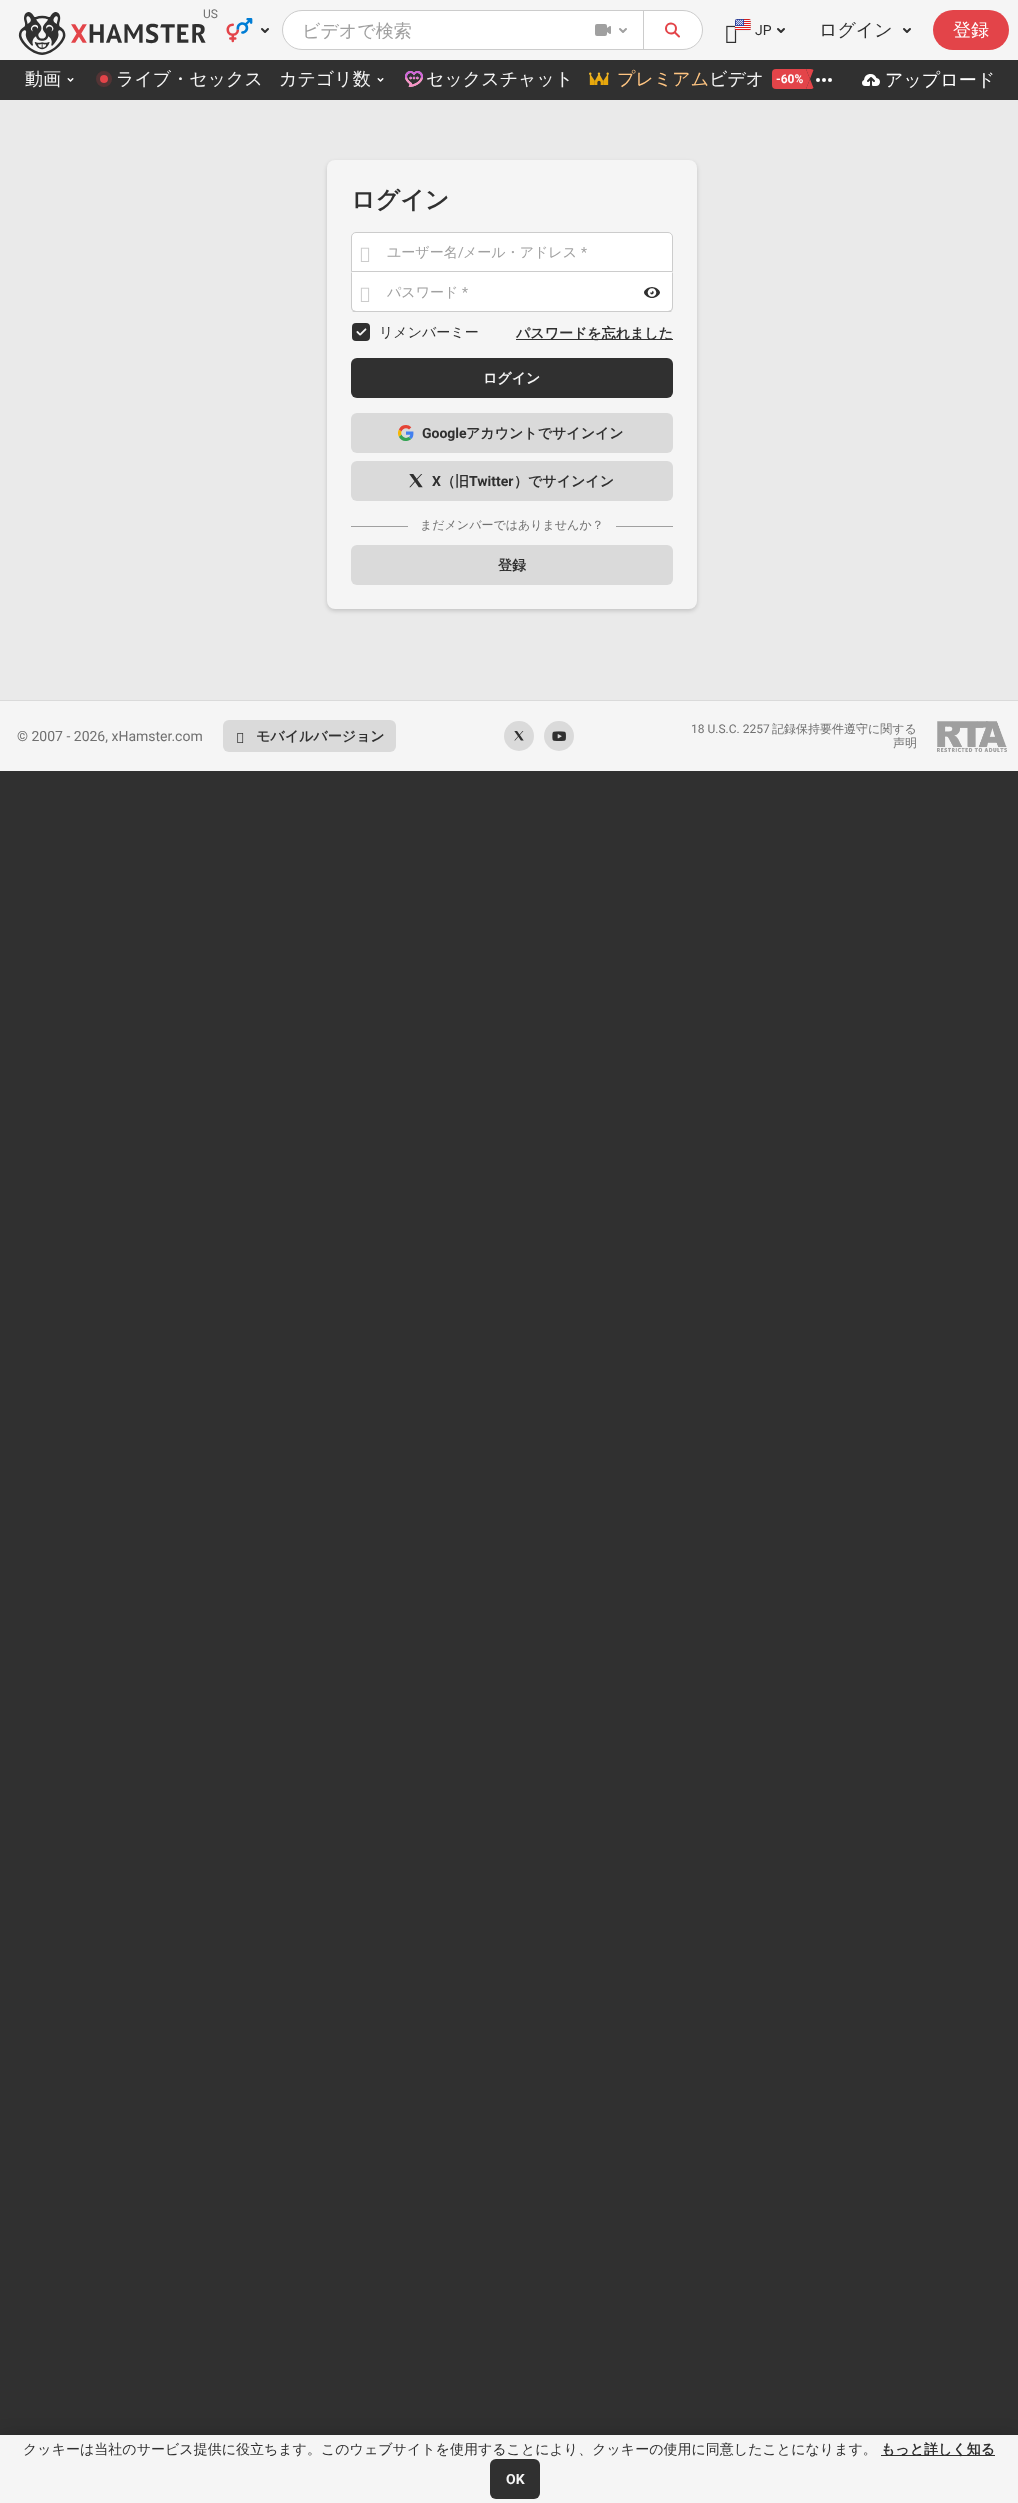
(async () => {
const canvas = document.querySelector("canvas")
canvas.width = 1018
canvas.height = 2503
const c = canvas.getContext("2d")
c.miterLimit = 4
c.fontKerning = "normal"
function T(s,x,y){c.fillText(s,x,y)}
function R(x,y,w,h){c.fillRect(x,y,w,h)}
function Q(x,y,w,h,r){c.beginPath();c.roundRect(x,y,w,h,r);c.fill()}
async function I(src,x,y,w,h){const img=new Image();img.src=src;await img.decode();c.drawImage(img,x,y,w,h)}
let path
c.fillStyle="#303030"
R(0,0,1018,2503)
c.fillStyle="#f5f5f5"
R(0,0,1018,60)
await I("1.png",18,12,188,43)
c.font="12px Roboto"
c.fillStyle="#707070"
T("US",203,18)
await I("2.png",226,18,27,25)
await I("3.png",261,28,8,5)
c.fillStyle="#fff"
c.beginPath()
c.roundRect(282.5,10.5,420,39,19.5)
c.fill()
c.strokeStyle="#ccc"
c.stroke()
c.font="500 18px WenQuanYi Zen Hei"
c.fillStyle="#a0a0a0"
T("ビデオで検索",302,37)
await I("4.png",595,24,16,12)
await I("5.png",619,28,8,5)
c.fillStyle="#ccc"
R(643,10,1,40)
await I("6.png",665,22,15,16)
await I("7.png",726,25,11,18)
await I("8.png",735,19,16,12)
c.font="14px Roboto"
c.fillStyle="#303030"
T("JP",755,35)
await I("3.png",777,28,8,5)
c.font="500 18px WenQuanYi Zen Hei"
T("ログイン",819,36)
await I("3.png",903,28,8,5)
c.fillStyle="#e34449"
Q(933,10,76,40,20)
c.fillStyle="#fff"
T("登録",953,36)
c.fillStyle="#f5f5f5"
T("動画",25,85)
await I("9.png",67,78,7,4)
await I("10.png",96,71,16,16)
T("ライブ・セックス",116,85)
T("カテゴリ数",279,85)
await I("9.png",377,78,7,4)
await I("11.png",405,71,18,16)
T("セックスチャット",426,85)
await I("12.png",589,72,20,13)
c.fillStyle="#ffc582"
T("プレミアム",617,85)
c.fillStyle="#f5f5f5"
T("ビデオ",709,85)
c.fillStyle="#e34449"
c.beginPath()
c.roundRect(772,69,34,20,[4,0,0,4])
c.fill()
c.font="bold 12px Roboto"
c.fillStyle="#fff"
T("-60%",776,83)
c.fillStyle="#e34449"
path = new Path2D("M806 69c1.5 0 6.5-.5 7.5 1l-3.5 9zm4 10l3.5 9c-1 1.5-6 1-7.5 1z")
c.fill(path)
path = new Path2D("M806 69v20l4-10z")
c.fill(path)
await I("13.png",816,78,16,4)
await I("14.png",862,74,18,12)
c.font="500 18px WenQuanYi Zen Hei"
c.fillStyle="#fff"
T("アップロード",885,86)
c.fillStyle="#eaeaea"
R(0,100,1018,600)
c.fillStyle="#00000029"
c.filter="blur(2px)"
c.beginPath()
c.roundRect(327,162,370,449,8)
c.fill()
c.filter="none"
c.fillStyle="#f5f5f5"
Q(327,160,370,449,8)
c.font="bold 24px WenQuanYi Zen Hei"
c.fillStyle="#303030"
T("ログイン",351,208)
c.fillStyle="#fff"
c.beginPath()
c.roundRect(351.5,232.5,321,39,[4.5,4.5,0,0])
c.fill()
c.stroke()
await I("15.png",360,247,10,15)
c.font="500 14px WenQuanYi Zen Hei"
c.fillStyle="#a0a0a0"
T("ユーザー名",387,257)
c.font="14px Roboto"
T("/",458,257)
c.font="500 14px WenQuanYi Zen Hei"
T("メール・アドレス",463,257)
c.font="14px Roboto"
T("*",581,257)
c.fillStyle="#fff"
c.beginPath()
c.roundRect(351,272,322,40,[0,0,5,5])
c.fill()
await I("15.png",360,287,10,15)
c.fillStyle="#ccc"
path = new Path2D("M673 272l-1 1v34c0 1-.5 2-1 3l.5 .5c1-.5 1.5-2 1.5-3.5z")
c.fill(path)
path = new Path2D("M356 312h312c2 0 3 0 4-1l-1-1l-3 1h-312l-3-1l-1 1c1 1 2 1 4 1z")
c.fill(path)
path = new Path2D("M352 273l-1-1v35c0 1.5 .5 3 1.5 3.5l.5-.5c-.5-1-1-2-1-3z")
c.fill(path)
c.font="500 14px WenQuanYi Zen Hei"
c.fillStyle="#a0a0a0"
T("パスワード",387,297)
c.font="14px Roboto"
T("*",462,297)
await I("16.png",644,287,16,11)
c.fillStyle="#303030"
Q(352,323,18,18,4)
await I("17.png",356,328,11,8)
c.font="500 14px WenQuanYi Zen Hei"
T("リメンバーミー",379,337)
R(516,339,157,1)
c.font="bold 14px WenQuanYi Zen Hei"
T("パスワードを忘れました",516,338)
Q(351,358,322,40,6)
c.fillStyle="#f5f5f5"
T("ログイン",483,383)
c.fillStyle="#dadada"
Q(351,413,322,40,6)
await I("18.png",398,425,16,16)
c.font="bold 14px Roboto"
c.fillStyle="#303030"
T("Google",422,438)
c.font="bold 14px WenQuanYi Zen Hei"
T("アカウントでサインイン",466,438)
c.fillStyle="#dadada"
Q(351,461,322,40,6)
await I("19.png",409,474,14,14)
c.font="bold 14px Roboto"
c.fillStyle="#303030"
T("X",432,486)
c.font="bold 14px WenQuanYi Zen Hei"
T("（旧",441,486)
c.font="bold 14px Roboto"
T("Twitter",469,486)
c.font="bold 14px WenQuanYi Zen Hei"
T("）でサインイン",514,486)
c.fillStyle="#a0a0a0"
R(351,526,57,1)
c.font="500 12px WenQuanYi Zen Hei"
c.fillStyle="#707070"
T("まだメンバーではありませんか？",420,529)
c.fillStyle="#a0a0a0"
R(616,526,57,1)
c.fillStyle="#dadada"
Q(351,545,322,40,6)
c.font="bold 14px WenQuanYi Zen Hei"
c.fillStyle="#303030"
T("登録",498,570)
c.fillStyle="#f5f5f5"
R(0,701,1018,70)
c.fillStyle="#dadada"
R(0,700,1018,1)
c.font="14px Roboto"
c.fillStyle="#707070"
T("© 2007 - 2026, xHamster.com",17,741)
c.fillStyle="#dadada"
Q(223,720,173,32,6)
await I("20.png",237,733,7,10)
c.font="bold 14px WenQuanYi Zen Hei"
c.fillStyle="#303030"
T("モバイルバージョン",256,741)
c.fillStyle="#dadada"
c.beginPath()
c.arc(519,736,15,0,7)
c.fill()
await I("21.png",514,731,10,10)
c.beginPath()
c.arc(559,736,15,0,7)
c.fill()
await I("22.png",552,731,14,10)
c.font="12px Roboto"
c.fillStyle="#707070"
T("18 U.S.C. 2257",691,733)
c.font="500 12px WenQuanYi Zen Hei"
T("記録保持要件遵守に関する",772,733)
T("声明",893,747)
await I("23.png",937,721,70,31)
c.fillStyle="#0000004d"
c.filter="blur(10px)"
c.beginPath()
c.rect(0,2440,1018,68)
c.fill()
c.filter="none"
c.fillStyle="#f5f5f5"
R(0,2435,1018,68)
c.font="500 14px WenQuanYi Zen Hei"
c.fillStyle="#303030"
T("クッキーは当社のサービス提供に役立ちます。このウェブサイトを使用することにより、クッキーの使用に同意したことになります。",23,2454)
R(881,2455,114,1)
c.font="bold 14px WenQuanYi Zen Hei"
T("もっと詳しく知る",881,2454)
Q(490,2459,50,40,6)
c.font="bold 14px Roboto"
c.fillStyle="#f5f5f5"
T("OK",506,2484)
})()
